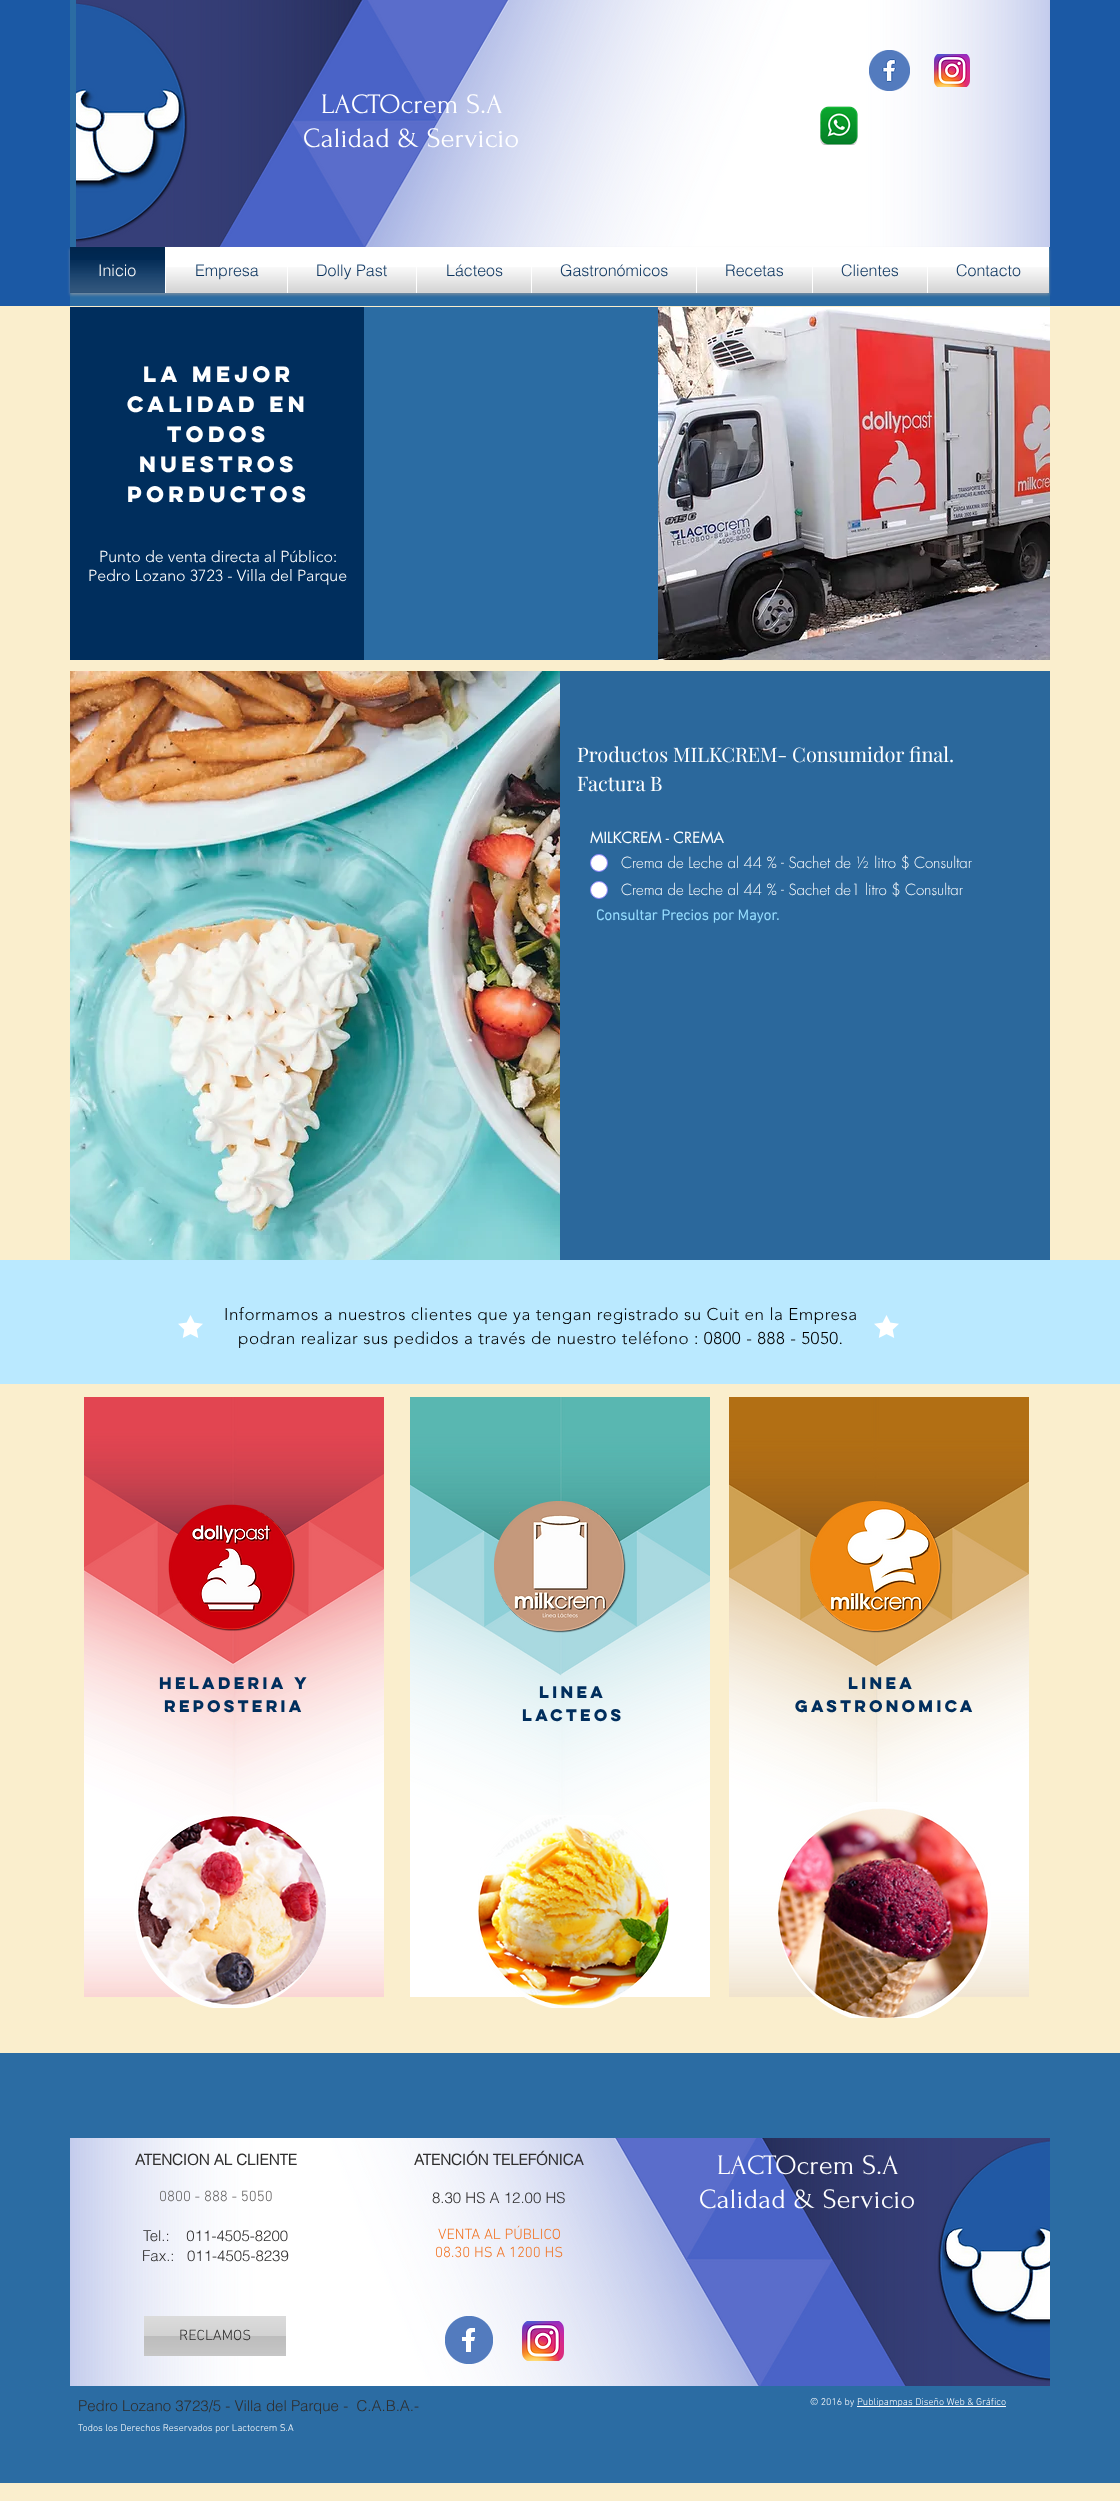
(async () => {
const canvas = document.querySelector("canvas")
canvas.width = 1120
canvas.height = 2501
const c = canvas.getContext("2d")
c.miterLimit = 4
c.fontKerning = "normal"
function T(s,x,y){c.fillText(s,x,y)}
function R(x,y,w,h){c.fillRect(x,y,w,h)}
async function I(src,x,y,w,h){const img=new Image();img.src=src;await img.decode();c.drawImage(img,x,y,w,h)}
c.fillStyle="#faeecd"
R(0,0,1120,2501)
c.fillStyle="#1b59a5"
R(0,0,1120,306)
c.fillStyle="#2b6ca3"
R(70,0,980,306)
await I("1.png",76,0,974,247)
await I("2.png",869,50,41,41)
await I("3.png",934,54,36,33)
c.letterSpacing="0.25px"
c.font="28px Forum"
c.fillStyle="#fff"
T("LACTOcrem S.A",321,113)
T("Calidad & Servicio",303,147)
c.fillStyle="#a29e9e99"
c.filter="blur(1.5px)"
c.beginPath()
c.rect(70,249,979,46)
c.fill()
c.filter="none"
c.fillStyle="#002e5d"
R(70,247,95,46)
c.letterSpacing="0px"
c.font="300 16px helvetica"
c.fillStyle="#fff"
T("Inicio",98,276)
await I("4.png",70,247,95,26)
await I("5.png",70,260,95,33)
R(165,247,884,46)
c.fillStyle="#002e5d"
T("Empresa",195,276)
await I("6.png",196,264,62,15)
await I("7.png",166,267,121,26)
T("Dolly Past",316,276)
await I("8.png",317,264,70,15)
await I("9.png",288,267,128,26)
T("Lácteos",446,276)
await I("10.png",446,264,56,12)
await I("11.png",417,267,114,26)
T("Gastronómicos",560,276)
await I("12.png",560,264,108,12)
await I("13.png",532,267,164,26)
T("Recetas",725,276)
await I("14.png",726,264,57,12)
await I("15.png",697,267,115,26)
T("Clientes",841,276)
await I("16.png",842,264,56,12)
await I("17.png",813,267,114,26)
T("Contacto",956,276)
await I("18.png",957,264,64,12)
await I("19.png",928,267,121,26)
await I("20.png",820,106,38,39)
R(70,307,294,353)
c.font="bold 20px 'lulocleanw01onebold'"
c.fillStyle="#fff"
T("La mejor",143,382)
T("calidad en",127,412)
T("todos",167,442)
T("nuestros",139,472)
T("porductos",127,502)
c.font="300 16px 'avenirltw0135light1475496'"
T("Punto de venta directa al Público:",99,562)
T("Pedro Lozano 3723 - Villa del Parque",88,581)
c.fillStyle="#2b6ca3"
R(364,307,294,353)
await I("21.png",658,307,392,353)
await I("22.png",70,671,490,589)
c.fillStyle="#2b689c"
R(560,671,490,589)
c.font="20px Playfair Display"
c.fillStyle="#fff"
T("Productos MILKCREM- Consumidor final.",577,762)
T("Factura B",577,791)
c.font="15px futura"
T("MILKCREM - CREMA",590,843)
c.beginPath()
c.arc(599,863,8.5,0,7)
c.fill()
c.strokeStyle="#8c84fa"
c.stroke()
c.font="300 15px futura"
T("Crema de Leche al 44 % - Sachet de ½ litro $",621,868)
T("Consultar",914,868)
c.beginPath()
c.arc(599,890,8.5,0,7)
c.fill()
c.stroke()
T("Crema de Leche al 44 % - Sachet de1 litro $",621,895)
T("Consultar",905,895)
c.font="bold 15px 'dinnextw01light'"
c.fillStyle="#97deff"
T("Consultar Precios por Mayor.",596,920)
c.fillStyle="#bae9ff"
R(0,1260,1120,124)
await I("23.png",178,1315,25,23)
c.letterSpacing="0.5px"
c.font="300 17px 'avenirltw0135light1475496'"
c.fillStyle="#000"
T("Informamos a nuestros clientes que ya tengan registrado su Cuit en la Empresa",224,1320)
T("podran realizar sus pedidos a través de nuestro teléfono : 0800 - 888 - 5050.",238,1344)
await I("23.png",874,1315,25,23)
await I("24.png",84,1397,300,600)
await I("25.png",410,1397,300,600)
await I("26.png",729,1397,300,600)
await I("27.png",168,1504,127,127)
await I("28.png",494,1501,132,132)
await I("29.png",810,1501,132,132)
c.letterSpacing="0px"
c.font="bold 15px 'lulocleanw01onebold'"
c.fillStyle="#002e5d"
T("Heladeria y",159,1689)
T("ReposterIa",164,1712)
T("linea",539,1698)
T("lActeos",522,1721)
T("lInea",848,1689)
T("gastronOmica",795,1712)
await I("30.png",134,1815,192,193)
await I("31.png",478,1815,191,193)
await I("32.png",778,1802,213,216)
c.fillStyle="#2b6ca3"
R(0,2053,1120,430)
await I("33.png",70,2138,980,248)
c.font="bold 15px helvetica"
c.fillStyle="#2f2e2e"
T("ATENCION AL CLIENTE",135,2165)
c.font="300 15px 'dinnextw01light'"
c.fillStyle="#605e5e"
T("0800 - 888 - 5050",159,2201)
c.font="300 15px helvetica"
c.fillStyle="#2f2e2e"
T("Tel.:    011-4505-8200",143,2241)
T("Fax.:   011-4505-8239",142,2261)
c.font="bold 15px helvetica"
T("ATENCIÓN TELEFÓNICA",414,2165)
c.font="300 15px helvetica"
T("8.30 HS A 12.00 HS",432,2203)
c.font="300 15px 'dinnextw01light'"
c.fillStyle="#f17424"
T("VENTA AL PÚBLICO",438,2239)
T("08.30 HS A 1200 HS",435,2257)
c.letterSpacing="0.25px"
c.font="28px Forum"
c.fillStyle="#fff"
T("LACTOcrem S.A",717,2174)
T("Calidad & Servicio",699,2208)
c.fillStyle="#ccc"
R(144,2316,142,40)
await I("34.png",144,2316,142,40)
c.letterSpacing="0px"
c.font="300 15px 'dinnextw01light'"
c.fillStyle="#2f2e2e"
T("RECLAMOS",179,2340)
await I("35.png",445,2316,48,48)
await I("36.png",522,2321,42,40)
c.font="300 15px helvetica"
T("Pedro Lozano 3723/5 - Villa del Parque -  C.A.B.A.-",78,2411)
c.font="300 10px 'dinnextw01light'"
c.fillStyle="#fff"
T("© 2016 by",810,2405)
R(857,2406,149,1)
T("Publipampas Diseño Web & Gráfico",857,2405)
T("Todos los Derechos Reservados por Lactocrem S.A",78,2431)
})()
